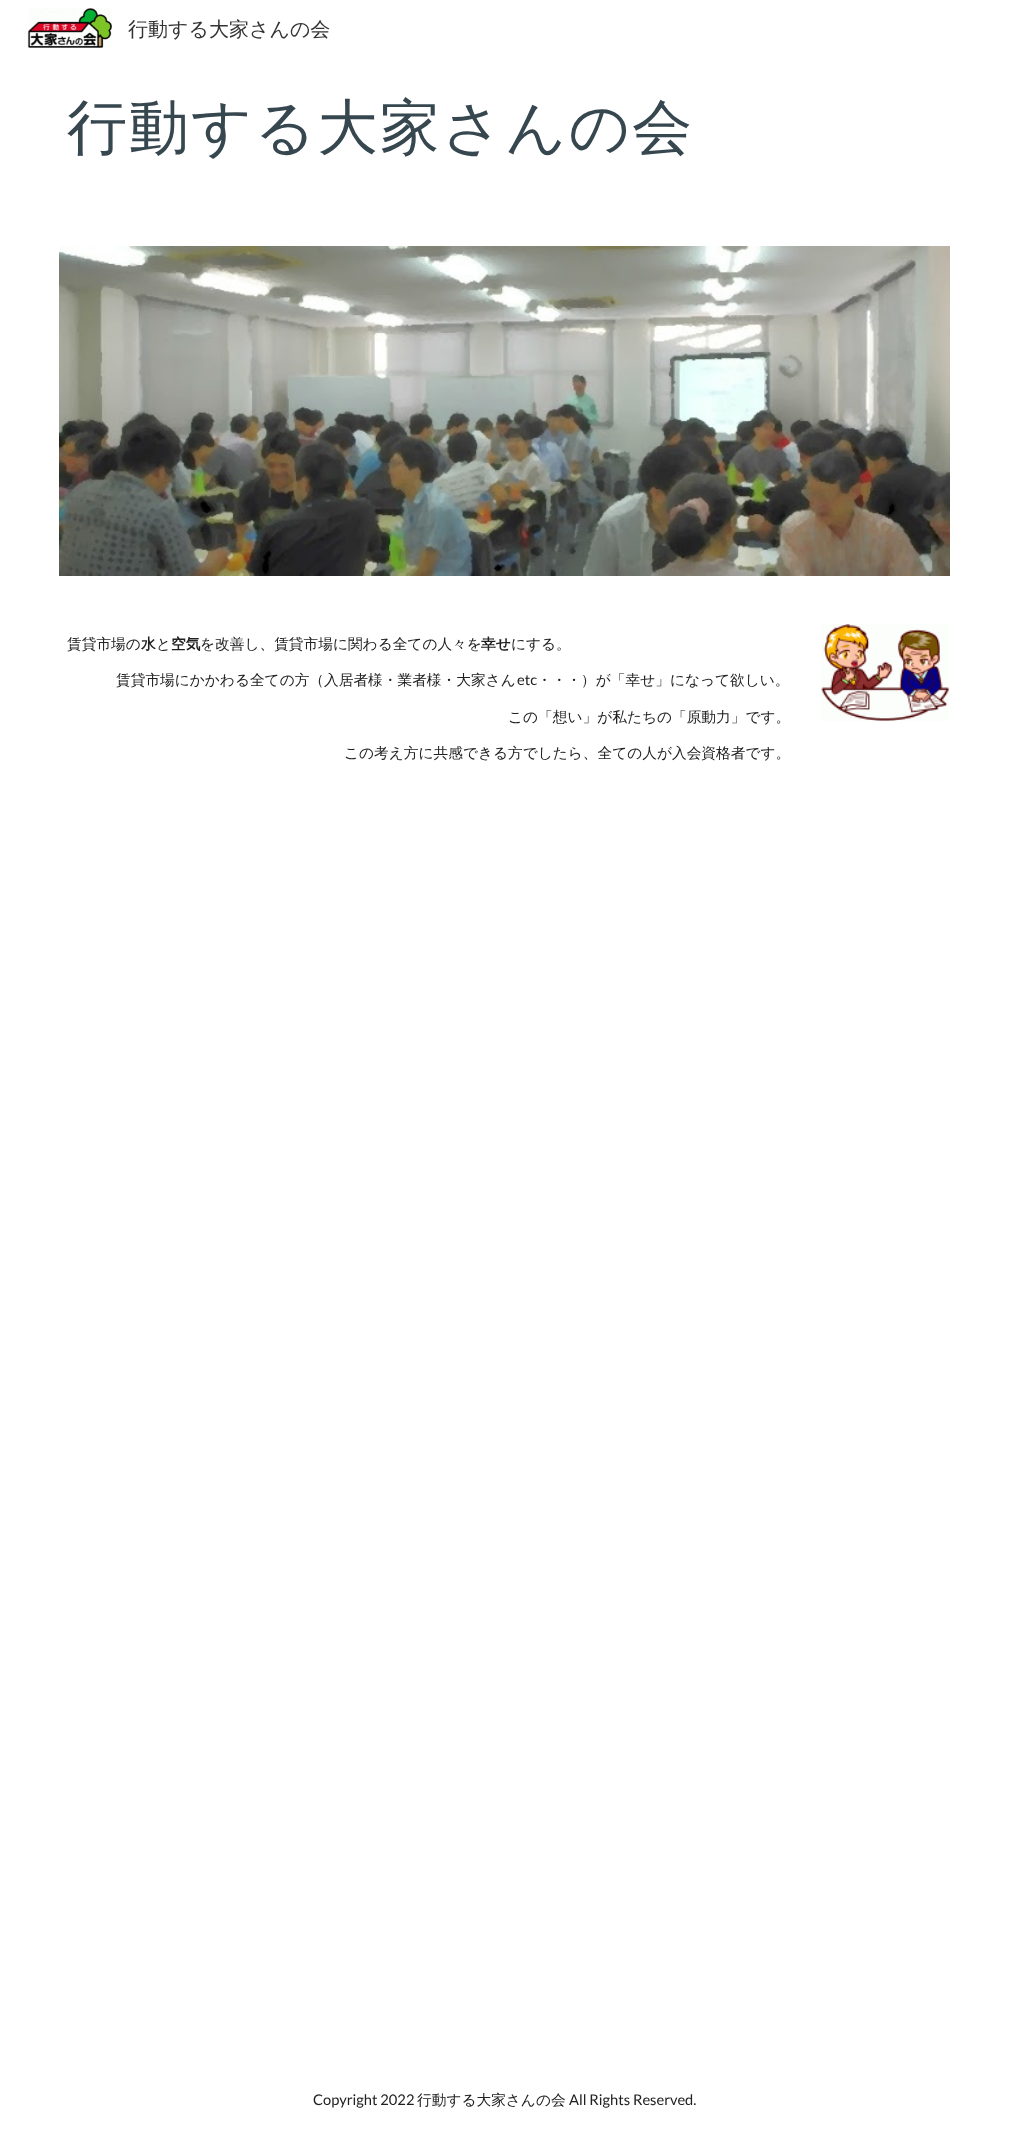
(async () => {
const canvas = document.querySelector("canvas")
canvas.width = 1009
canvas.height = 2144
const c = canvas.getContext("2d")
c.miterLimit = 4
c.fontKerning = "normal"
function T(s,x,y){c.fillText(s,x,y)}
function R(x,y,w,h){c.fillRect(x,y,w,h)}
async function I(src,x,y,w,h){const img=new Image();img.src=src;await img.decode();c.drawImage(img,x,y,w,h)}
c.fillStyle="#fff"
R(0,0,1009,2144)
await I("1.png",27,8,85,40)
c.font="500 20px WenQuanYi Zen Hei"
c.fillStyle="#333"
T("行動する大家さんの会",128,36)
c.letterSpacing="2px"
c.font="500 60px WenQuanYi Zen Hei"
c.fillStyle="#37474f"
T("行動する大家さんの会",67,148)
await I("2.png",59,246,891,330)
c.letterSpacing="0px"
c.font="500 14.7px WenQuanYi Zen Hei"
c.fillStyle="#212121"
T("賃貸市場の",67,649)
c.font="bold 14.7px WenQuanYi Zen Hei"
T("水",141,649)
c.font="500 14.7px WenQuanYi Zen Hei"
T("と",156,649)
c.font="bold 14.7px WenQuanYi Zen Hei"
T("空気",171,649)
c.font="500 14.7px WenQuanYi Zen Hei"
T("を改善し、賃貸市場に関わる全ての人々を",200,649)
c.font="bold 14.7px WenQuanYi Zen Hei"
T("幸せ",481,649)
c.font="500 14.7px WenQuanYi Zen Hei"
T("にする。",511,649)
T("賃貸市場にかかわる全ての方（入居者様・業者様・大家さん",116,685)
c.font="14.7px Lato"
T("etc",517,685)
c.font="500 14.7px WenQuanYi Zen Hei"
T("・・・）が「幸せ」になって欲しい。",537,685)
T("この「想い」が私たちの「原動力」です。",508,722)
T("この考え方に共感できる方でしたら、全ての人が入会資格者です。",344,758)
await I("3.png",821,624,128,97)
c.font="14.7px Lato"
T("Copyright 2022",313,2105)
c.font="500 14.7px WenQuanYi Zen Hei"
T("行動する大家さんの会",417,2105)
c.font="14.7px Lato"
T("All Rights Reserved.",569,2105)
})()
